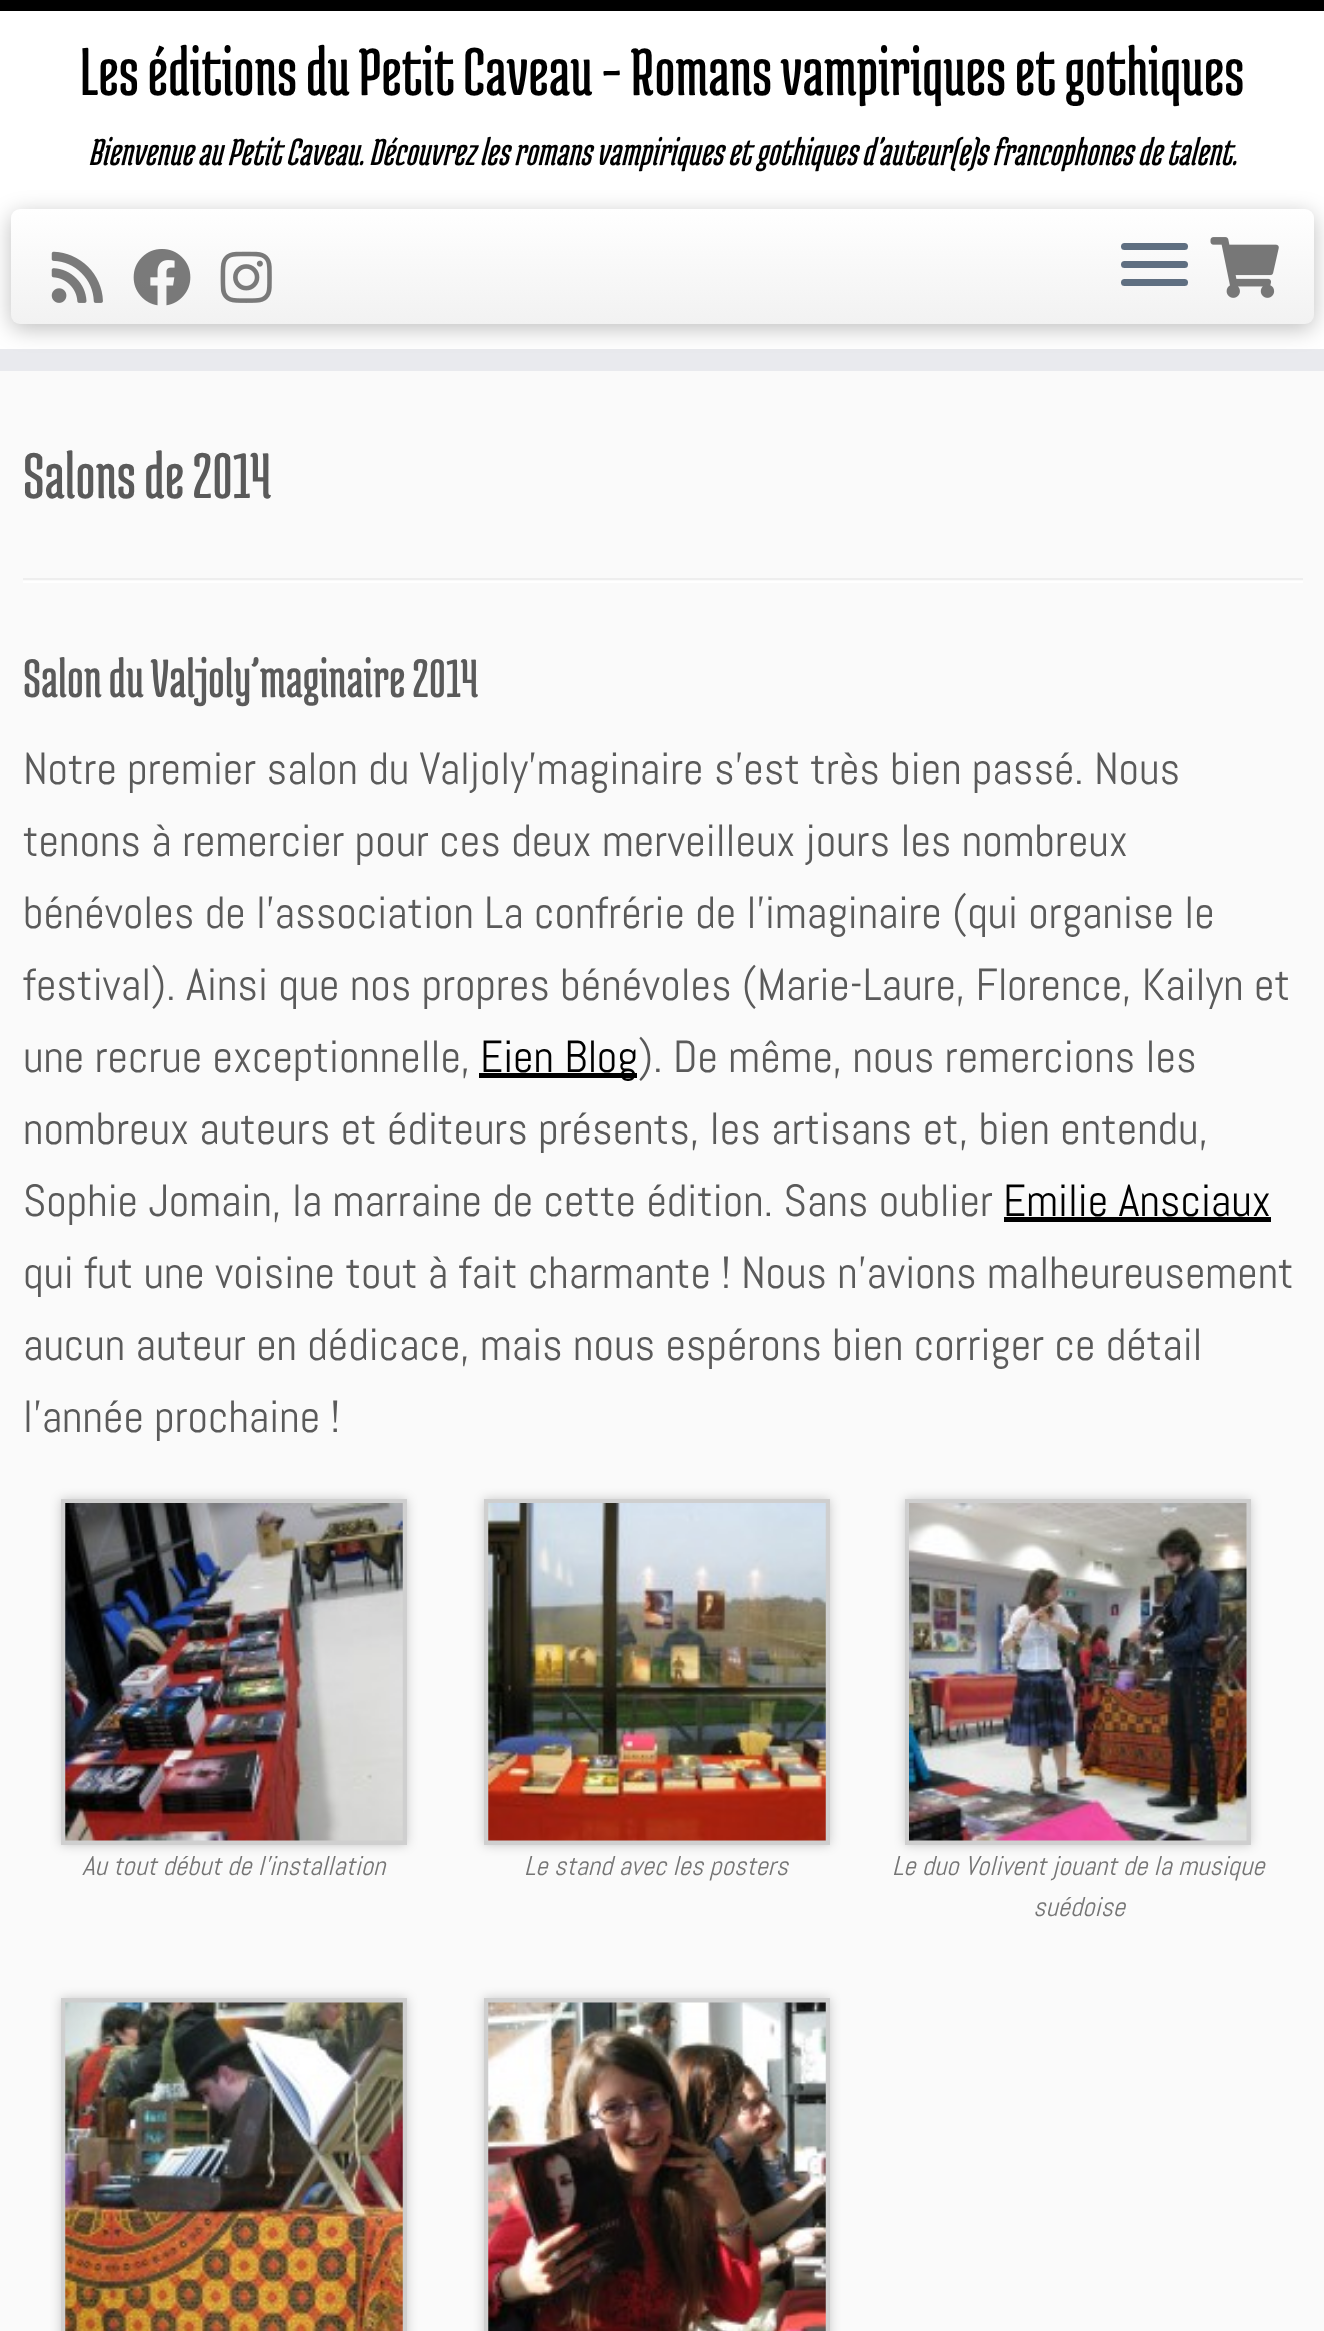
(async () => {
const canvas = document.querySelector("canvas")
canvas.width = 1324
canvas.height = 2331
const c = canvas.getContext("2d")
c.miterLimit = 4
c.fontKerning = "normal"
function T(s,x,y){c.fillText(s,x,y)}
function R(x,y,w,h){c.fillRect(x,y,w,h)}
function Q(x,y,w,h,r){c.beginPath();c.roundRect(x,y,w,h,r);c.fill()}
async function I(src,x,y,w,h){const img=new Image();img.src=src;await img.decode();c.drawImage(img,x,y,w,h)}
let gradient
c.fillStyle="#fafafa"
R(0,0,1324,2331)
c.fillStyle="#fff"
R(0,11,1324,338)
c.fillStyle="#000"
R(0,0,1324,11)
c.fillStyle="#e9eaee"
R(0,349,1324,22)
c.font="72px Medula One"
c.fillStyle="#000"
T("Les éditions du Petit Caveau – Romans vampiriques et gothiques",80,95)
c.font="italic 40.5px Medula One"
T("Bienvenue au Petit Caveau. Découvrez les romans vampiriques et gothiques d'auteur(e)s francophones de talent.",88,165)
c.fillStyle="#00000040"
c.filter="blur(11px)"
c.beginPath()
c.roundRect(11,214,1303,115,9)
c.fill()
c.filter="none"
gradient = c.createLinearGradient(663,209,663,324)
gradient.addColorStop(0,"#fff")
gradient.addColorStop(1,"#f2f2f2")
c.fillStyle = gradient
Q(11,209,1303,115,9)
await I("1.png",51,251,52,52)
await I("2.png",133,249,58,57)
await I("3.png",220,251,52,52)
c.fillStyle="#5f6f81"
Q(1121,243,67,7,3.5)
Q(1121,261,67,7,3.5)
Q(1121,279,67,7,3.5)
await I("4.png",1210,237,69,61)
c.font="68.5px Medula One"
c.fillStyle="#5a5a5a"
T("Salons de 2014",23,498)
c.fillStyle="#eee"
R(23,578,1280,2)
c.fillStyle="#fff"
R(23,581,1280,2)
c.font="57.5px Medula One"
c.fillStyle="#5a5a5a"
T("Salon du Valjoly’maginaire 2014",23,697)
c.font="45px Abel"
T("Notre premier salon du Valjoly’maginaire s’est très bien passé. Nous",23,784)
T("tenons à remercier pour ces deux merveilleux jours les nombreux",23,856)
T("bénévoles de l’association La confrérie de l’imaginaire (qui organise le",23,928)
T("festival). Ainsi que nos propres bénévoles (Marie-Laure, Florence, Kailyn et",23,1000)
T("une recrue exceptionnelle,",23,1072)
c.fillStyle="#000"
R(479,1073,158,5)
T("Eien Blog",480,1072)
c.fillStyle="#5a5a5a"
T("). De même, nous remercions les",638,1072)
T("nombreux auteurs et éditeurs présents, les artisans et, bien entendu,",23,1144)
T("Sophie Jomain, la marraine de cette édition. Sans oublier",23,1216)
c.fillStyle="#000"
T("Emilie Ansciaux",1003,1216)
R(1004,1217,267,5)
c.fillStyle="#5a5a5a"
T("qui fut une voisine tout à fait charmante ! Nous n’avions malheureusement",23,1288)
T("aucun auteur en dédicace, mais nous espérons bien corriger ce détail",23,1360)
T("l’année prochaine !",23,1432)
c.fillStyle="#00000033"
c.filter="blur(5.5px)"
c.beginPath()
c.rect(61,1499,346,346)
c.fill()
c.filter="none"
c.strokeStyle="#cfcfcf"
c.lineWidth=5
c.strokeRect(63.5,1501.5,341,341)
await I("5.png",65,1503,338,338)
c.font="italic 27px Abel"
c.fillStyle="#757575"
T("Au tout début de l’installation",82,1875)
c.fillStyle="#00000033"
c.filter="blur(5.5px)"
c.beginPath()
c.rect(484,1499,346,346)
c.fill()
c.filter="none"
c.strokeRect(486.5,1501.5,341,341)
await I("6.png",488,1503,338,338)
c.fillStyle="#757575"
T("Le stand avec les posters",524,1875)
c.fillStyle="#00000033"
c.filter="blur(5.5px)"
c.beginPath()
c.rect(905,1499,346,346)
c.fill()
c.filter="none"
c.strokeRect(907.5,1501.5,341,341)
await I("7.png",909,1503,338,338)
c.fillStyle="#757575"
T("Le duo Volivent jouant de la musique",892,1875)
T("suédoise",1033,1916)
c.fillStyle="#00000033"
c.filter="blur(5.5px)"
c.beginPath()
c.rect(61,1998,346,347)
c.fill()
c.filter="none"
c.strokeRect(63.5,2000.5,341,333)
await I("8.png",65,2002,338,329)
c.filter="blur(5.5px)"
c.beginPath()
c.rect(484,1998,346,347)
c.fill()
c.filter="none"
c.strokeRect(486.5,2000.5,341,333)
await I("9.png",488,2002,338,329)
})()
